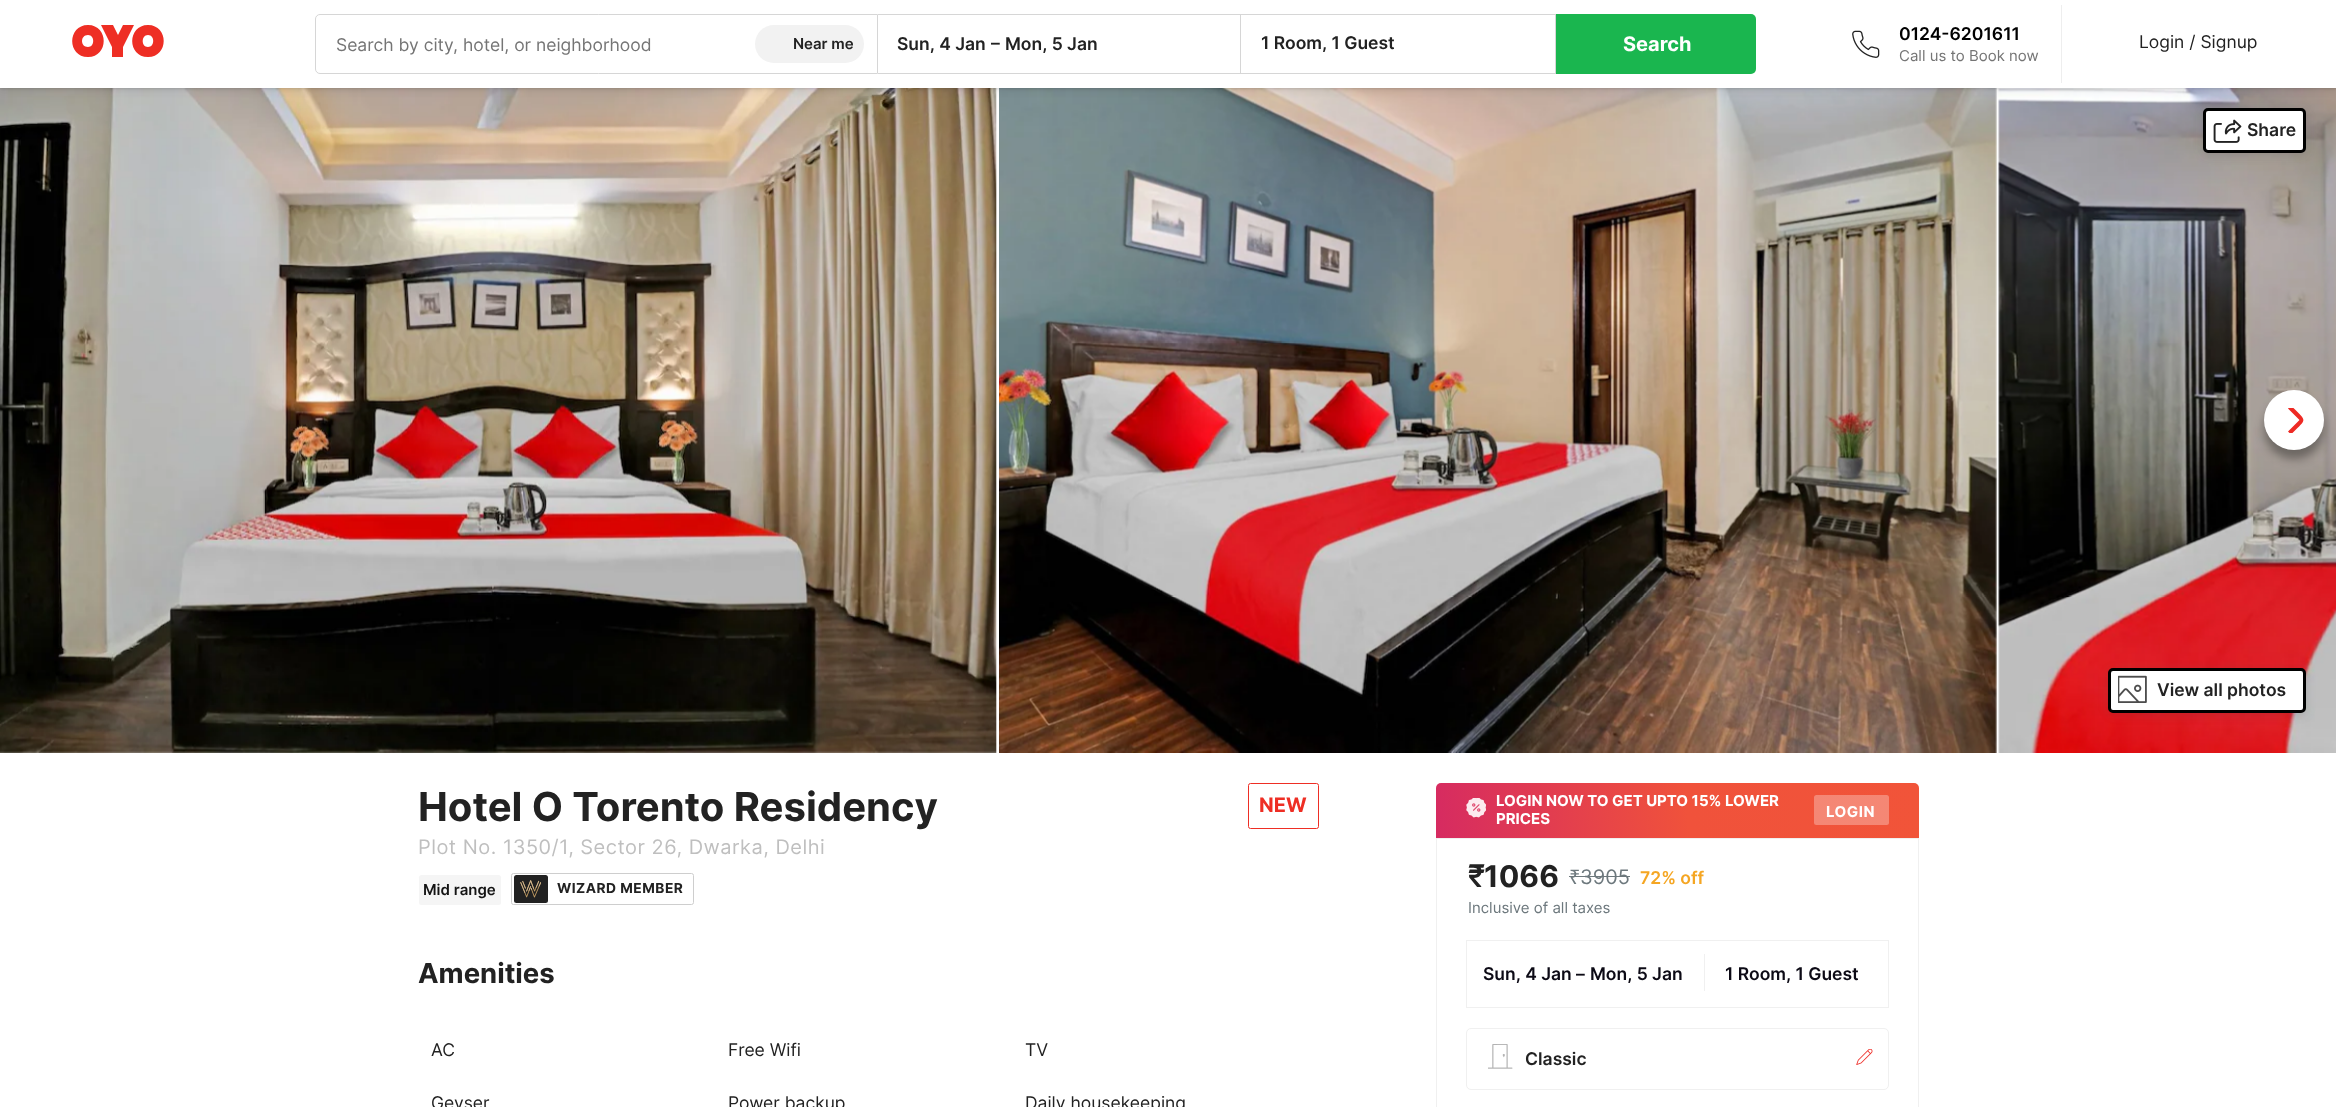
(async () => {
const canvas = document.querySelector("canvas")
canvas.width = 2336
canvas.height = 1107
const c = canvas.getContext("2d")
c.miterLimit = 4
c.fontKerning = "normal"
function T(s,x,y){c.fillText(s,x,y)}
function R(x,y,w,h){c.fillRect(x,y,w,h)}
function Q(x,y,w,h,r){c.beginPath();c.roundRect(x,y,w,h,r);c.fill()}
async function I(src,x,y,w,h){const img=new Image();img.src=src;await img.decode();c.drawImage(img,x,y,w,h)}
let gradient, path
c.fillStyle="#fff"
R(0,0,2336,1107)
await I("2.png",0,88,997,665)
await I("3.png",999,88,998,665)
await I("4.png",1998,88,338,665)
c.fillStyle="#0000001a"
c.filter="blur(1px)"
c.beginPath()
c.rect(0,1,2336,88)
c.fill()
c.filter="none"
c.filter="blur(4px)"
c.beginPath()
c.rect(0,3,2336,87)
c.fill()
c.filter="none"
c.fillStyle="#fff"
R(0,0,2336,88)
c.fillStyle="#ee2e24"
path = new Path2D("M148 57c21 0 21-32 0-32c-21 0-21 32 0 32zm0-22c7 0 7 12 0 12c-7 0-7-12 0-12zm-60 22c21 0 21-32 0-32c-21 0-21 32 0 32zm0-22c7 0 7 12 0 12c-8 0-8-12 0-12zm30 0l-5-10h-12l11 22v10h11v-10l11-22h-11z")
c.fill(path)
c.beginPath()
c.roundRect(315.5,14.5,562,59,[4.5,0,0,4.5])
c.strokeStyle="#d6d6d6"
c.stroke()
c.font="17.5px Inter"
c.fillStyle="#757575"
T("Search by city, hotel, or neighborhood",336,51)
c.fillStyle="#f2f2f2"
Q(755,25,109,38,19)
c.font="600 15px Inter"
c.fillStyle="#222"
T("Near me",793,49)
c.fillStyle="#d6d6d6"
R(878,14,362,1)
R(878,73,362,1)
c.font="600 17.5px Inter"
c.fillStyle="#222"
T("Sun, 4 Jan",897,50)
T("–",991,49)
T("Mon, 5 Jan",1005,50)
c.strokeRect(1240.5,14.5,315,59)
T("1 Room, 1 Guest",1261,49)
c.fillStyle="#1ab64f"
c.beginPath()
c.roundRect(1556,14,200,60,[0,5,5,0])
c.fill()
c.font="bold 20px Inter"
c.fillStyle="#fff"
T("Search",1623,51)
c.fillStyle="#eee"
R(2061,5,1,78)
await I("1.png",1852,30,28,28)
c.font="600 17.5px Inter"
c.fillStyle="#000"
T("0124-6201611",1899,40)
c.font="15px Inter"
c.fillStyle="#757575"
T("Call us to Book now",1899,61)
c.font="17.5px Inter"
c.fillStyle="#222"
T("Login / Signup",2139,48)
c.fillStyle="#00000059"
c.filter="blur(5px)"
c.beginPath()
c.roundRect(2264,399,60,60,30)
c.fill()
c.filter="none"
c.fillStyle="#fff"
c.beginPath()
c.arc(2294,420,30,0,7)
c.fill()
c.save()
c.beginPath()
c.rect(2288,408,16,25)
c.clip()
c.fillStyle="#ee2a24"
path = new Path2D("M2291 405.5l-3 3l11.5 11.5l-11.5 11.5l3 3c16.5-17 16.5-12 0-29z")
c.fill(path,"evenodd")
c.restore()
c.fillStyle="#37404d29"
c.filter="blur(5px)"
c.beginPath()
c.roundRect(2203,110,103,45,5)
c.fill()
c.filter="none"
c.fillStyle="#fff"
c.beginPath()
c.roundRect(2204.5,109.5,100,42,3.5)
c.fill()
c.strokeStyle="#000"
c.lineWidth=3
c.stroke()
await I("5.png",2213,119,29,24)
c.font="600 17.5px Inter"
c.fillStyle="#222"
T("Share",2247,136)
c.fillStyle="#37404d29"
c.filter="blur(5px)"
c.beginPath()
c.roundRect(2108,670,198,45,5)
c.fill()
c.filter="none"
c.fillStyle="#fff"
c.beginPath()
c.roundRect(2109.5,669.5,195,42,3.5)
c.fill()
c.stroke()
await I("6.png",2118,675,29,28)
c.fillStyle="#222"
T("View all photos",2157,696)
c.font="bold 40px Inter"
T("Hotel O Torento Residency",418,821)
c.letterSpacing="0.5px"
c.font="20px Inter"
c.fillStyle="#bfbfbf"
T("Plot No. 1350/1, Sector 26, Dwarka, Delhi",418,854)
c.beginPath()
c.roundRect(1248.5,783.5,70,45,2)
c.strokeStyle="#ee2e24"
c.lineWidth=1
c.stroke()
c.letterSpacing="0px"
c.font="bold 20px Inter"
c.fillStyle="#ee2e24"
T("NEW",1259,812)
c.fillStyle="#f5f5f5"
Q(419,875,82,30,2.5)
c.font="600 15px Inter"
c.fillStyle="#141414"
T("Mid range",423,895)
c.beginPath()
c.roundRect(511.5,873.5,182,31,2)
c.strokeStyle="#cecece"
c.stroke()
c.fillStyle="#212121"
Q(514,875,34,28,2.5)
await I("7.png",520,880,21,18)
c.letterSpacing="0.5px"
c.font="bold 13.75px Inter"
c.fillStyle="#222"
T("WIZARD MEMBER",557,893)
c.letterSpacing="0px"
c.font="bold 27.5px Inter"
T("Amenities",418,983)
c.font="17.5px Inter"
T("AC",431,1056)
T("Free Wifi",728,1056)
T("TV",1025,1056)
T("Geyser",431,1109)
T("Power backup",728,1109)
T("Daily housekeeping",1025,1109)
gradient = c.createLinearGradient(1919,789,1436,831)
gradient.addColorStop(0,"#f15439")
gradient.addColorStop(.48,"#f0523b")
gradient.addColorStop(1,"#d62b61")
c.fillStyle = gradient
c.beginPath()
c.roundRect(1436,783,483,55,[5,5,0,0])
c.fill()
await I("8.png",1466,798,20,20)
c.font="bold 15px Inter"
c.fillStyle="#fff"
T("LOGIN NOW TO GET UPTO 15% LOWER",1496,806)
T("PRICES",1496,824)
c.letterSpacing="0.5px"
T("LOGIN",1826,817)
c.fillStyle="#ffffff4d"
Q(1814,795,75,30,2.5)
c.strokeStyle="#f0f0f0"
c.strokeRect(1436.5,838.5,482,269)
c.letterSpacing="0px"
c.font="bold 30px 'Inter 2'"
c.fillStyle="#222"
T("₹",1468,887)
c.font="bold 30px Inter"
T("1066",1484,887)
c.font="20px Noto Sans"
c.fillStyle="#6d787d"
T("₹",1569,884)
R(1569,876,61,1)
c.font="20px Inter"
T("3905",1580,884)
c.font="600 17.5px Inter"
c.fillStyle="#f5a623"
T("72% off",1640,884)
c.font="15px Inter"
c.fillStyle="#6d787d"
T("Inclusive of all taxes",1468,913)
c.strokeRect(1466.5,940.5,422,67)
c.font="600 17.5px Inter"
c.fillStyle="#0c0a15"
T("Sun, 4 Jan",1483,980)
T("–",1576,980)
T("Mon, 5 Jan",1590,980)
c.fillStyle="#f0f0f0"
R(1704,954,1,37)
c.fillStyle="#0c0a15"
T("1 Room, 1 Guest",1725,980)
c.beginPath()
c.roundRect(1466.5,1028.5,422,61,4.5)
c.stroke()
await I("9.png",1488,1044,25,25)
c.fillStyle="#222"
T("Classic",1525,1065)
await I("10.png",1856,1049,17,16)
})()
